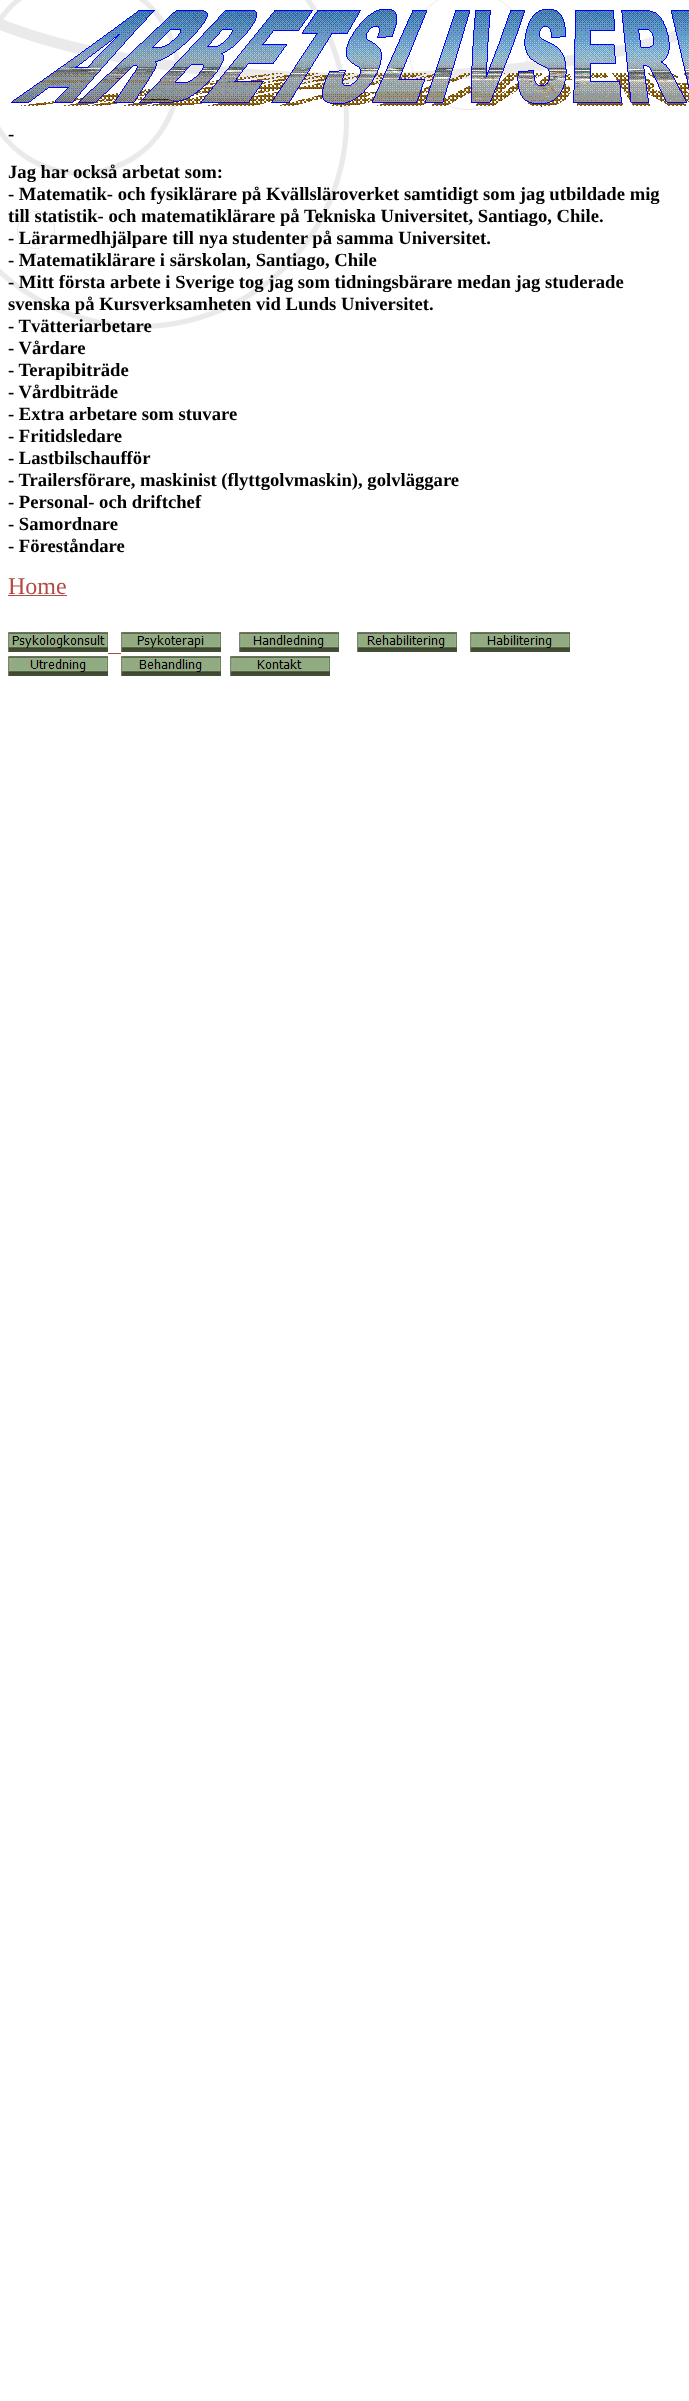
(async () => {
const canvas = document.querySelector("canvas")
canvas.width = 689
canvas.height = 2401
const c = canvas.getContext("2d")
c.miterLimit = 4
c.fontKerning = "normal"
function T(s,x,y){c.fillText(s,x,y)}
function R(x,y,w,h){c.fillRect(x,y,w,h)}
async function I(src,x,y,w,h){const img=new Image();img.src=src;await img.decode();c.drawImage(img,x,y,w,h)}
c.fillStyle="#fff"
R(0,0,689,2401)
await I("1.png",0,0,689,329)
await I("2.png",11,9,678,98)
c.font="bold 18.65px Liberation Serif"
c.fillStyle="#000"
T("-",8,140)
T("Jag har också arbetat som:",8,178)
T("- Matematik- och fysiklärare på Kvällsläroverket samtidigt som jag utbildade mig",8,200)
T("till statistik- och matematiklärare på Tekniska Universitet, Santiago, Chile.",8,222)
T("- Lärarmedhjälpare till nya studenter på samma Universitet.",8,244)
T("- Matematiklärare i särskolan, Santiago, Chile",8,266)
T("- Mitt första arbete i Sverige tog jag som tidningsbärare medan jag studerade",8,288)
T("svenska på Kursverksamheten vid Lunds Universitet.",8,310)
T("- Tvätteriarbetare",8,332)
T("- Vårdare",8,354)
T("- Terapibiträde",8,376)
T("- Vårdbiträde",8,398)
T("- Extra arbetare som stuvare",8,420)
T("- Fritidsledare",8,442)
T("- Lastbilschaufför",8,464)
T("- Trailersförare, maskinist (flyttgolvmaskin), golvläggare",8,486)
T("- Personal- och driftchef",8,508)
T("- Samordnare",8,530)
T("- Föreståndare",8,552)
c.font="24px Liberation Serif"
c.fillStyle="#b24b45"
T("Home",8,594)
R(8,595,59,1)
await I("3.png",8,632,100,20)
await I("4.png",121,632,100,20)
await I("5.png",239,632,100,20)
await I("6.png",357,632,100,20)
await I("7.png",470,632,100,20)
R(108,653,13,1)
await I("8.png",8,656,100,20)
await I("9.png",121,656,100,20)
await I("10.png",230,656,100,20)
})()
